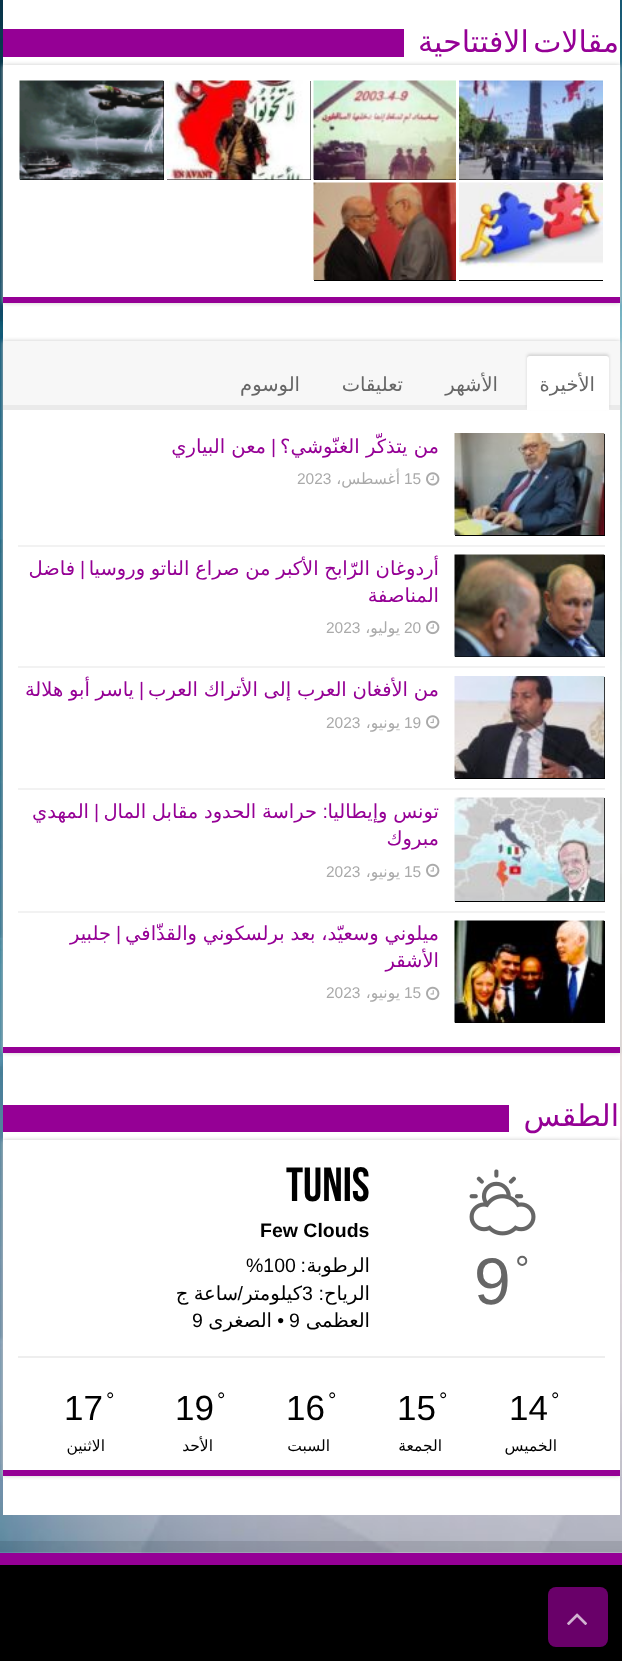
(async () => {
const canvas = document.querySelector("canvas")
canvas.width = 622
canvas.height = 1661
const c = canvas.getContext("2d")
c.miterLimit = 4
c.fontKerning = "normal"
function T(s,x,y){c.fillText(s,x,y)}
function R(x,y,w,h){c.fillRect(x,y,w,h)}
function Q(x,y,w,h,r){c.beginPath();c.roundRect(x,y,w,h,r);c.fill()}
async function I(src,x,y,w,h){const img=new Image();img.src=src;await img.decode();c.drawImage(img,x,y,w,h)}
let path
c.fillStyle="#fff"
R(0,0,622,1661)
await I("1.png",0,0,622,1553)
R(3,0,617,1515)
c.wordSpacing="-5px"
c.direction="rtl"
c.font="30px DejaVu Sans"
c.fillStyle="#950095"
T("مقالات الافتتاحية",619,52)
R(3,29,401,28)
c.fillStyle="#cacaca"
c.filter="blur(2px)"
c.beginPath()
c.rect(3,65,617,238)
c.fill()
c.filter="none"
c.fillStyle="#fff"
R(3,65,617,232)
c.fillStyle="#950095"
R(3,297,617,6)
c.fillStyle="#000"
R(459,179,144,1)
await I("2.png",459,80,144,100)
R(314,179,142,1)
await I("3.png",313,80,143,100)
R(167,81,144,99)
await I("4.png",166,80,145,100)
R(20,81,144,99)
await I("5.png",19,80,145,100)
R(459,280,144,1)
await I("6.png",459,182,144,98)
R(314,280,142,1)
await I("7.png",313,182,143,98)
c.fillStyle="#cacaca"
c.filter="blur(2px)"
c.beginPath()
c.rect(3,341,617,712)
c.fill()
c.filter="none"
c.fillStyle="#fff"
R(3,410,617,637)
c.fillStyle="#950095"
R(3,1047,617,6)
c.fillStyle="#f7f7f7"
R(3,341,617,64)
c.fillStyle="#eaeaea"
R(3,405,617,5)
c.fillStyle="#d4d4d4"
c.filter="blur(1.5px)"
c.beginPath()
c.roundRect(527,354,82,54,3)
c.fill()
c.filter="none"
c.fillStyle="#fff"
c.beginPath()
c.roundRect(527,356,82,54,[3,3,0,0])
c.fill()
c.wordSpacing="0px"
c.font="19.5px DejaVu Sans"
c.fillStyle="#666"
T("الأخيرة",595,391)
T("الأشهر",498,391)
T("تعليقات",403,391)
T("الوسوم",300,391)
c.fillStyle="#f2f2f2"
R(18,545,587,2)
c.fillStyle="#000"
R(455,434,150,102)
await I("8.png",454,433,151,102)
c.fillStyle="#950095"
T("من يتذكّر الغنّوشي؟",439,453)
c.font="19.5px Liberation Sans"
T("|",276,453)
c.font="19.5px DejaVu Sans"
T("معن البياري",266,453)
await I("9.png",426,472,14,14)
c.direction="ltr"
c.font="15.5px Liberation Sans"
c.fillStyle="#aaa"
T("15",404,484)
c.direction="rtl"
c.font="15.5px DejaVu Sans"
T("أغسطس،",400,484)
c.direction="ltr"
c.font="15.5px Liberation Sans"
T("2023",297,484)
c.fillStyle="#f2f2f2"
R(18,666,587,2)
c.fillStyle="#000"
R(455,555,150,102)
await I("10.png",454,554,151,103)
c.wordSpacing="-0.5px"
c.direction="rtl"
c.font="19.5px DejaVu Sans"
c.fillStyle="#950095"
T("أردوغان الرّابح الأكبر من صراع الناتو وروسيا",439,575)
c.wordSpacing="0px"
c.font="19.5px Liberation Sans"
T("|",85,575)
c.font="19.5px DejaVu Sans"
T("فاضل",75,575)
T("المناصفة",439,602)
await I("11.png",426,620,14,15)
c.direction="ltr"
c.font="15.5px Liberation Sans"
c.fillStyle="#aaa"
T("20",404,633)
c.direction="rtl"
c.font="15.5px DejaVu Sans"
T("يوليو،",400,633)
c.direction="ltr"
c.font="15.5px Liberation Sans"
T("2023",326,633)
c.fillStyle="#f2f2f2"
R(18,788,587,2)
c.fillStyle="#000"
R(455,677,150,102)
await I("12.png",454,676,151,102)
c.wordSpacing="-0.5px"
c.direction="rtl"
c.font="19.5px DejaVu Sans"
c.fillStyle="#950095"
T("من الأفغان العرب إلى الأتراك العرب",439,696)
c.wordSpacing="0px"
c.font="19.5px Liberation Sans"
T("|",144,696)
c.wordSpacing="-0.5px"
c.font="19.5px DejaVu Sans"
T("ياسر أبو هلالة",134,696)
await I("9.png",426,715,14,14)
c.wordSpacing="0px"
c.direction="ltr"
c.font="15.5px Liberation Sans"
c.fillStyle="#aaa"
T("19",404,728)
c.direction="rtl"
c.font="15.5px DejaVu Sans"
T("يونيو،",400,728)
c.direction="ltr"
c.font="15.5px Liberation Sans"
T("2023",326,728)
c.fillStyle="#f2f2f2"
R(18,911,587,2)
c.fillStyle="#000"
R(455,798,150,104)
await I("13.png",454,797,151,104)
c.wordSpacing="-0.5px"
c.direction="rtl"
c.font="19.5px DejaVu Sans"
c.fillStyle="#950095"
T("تونس وإيطاليا",439,818)
c.wordSpacing="0px"
c.font="19.5px Liberation Sans"
T(":",328,818)
c.wordSpacing="-0.5px"
c.font="19.5px DejaVu Sans"
T("حراسة الحدود مقابل المال",317,818)
c.wordSpacing="0px"
c.font="19.5px Liberation Sans"
T("|",99,818)
c.font="19.5px DejaVu Sans"
T("المهدي",89,818)
T("مبروك",439,845)
await I("11.png",426,863,14,15)
c.direction="ltr"
c.font="15.5px Liberation Sans"
c.fillStyle="#aaa"
T("15",404,877)
c.direction="rtl"
c.font="15.5px DejaVu Sans"
T("يونيو،",400,877)
c.direction="ltr"
c.font="15.5px Liberation Sans"
T("2023",326,877)
c.fillStyle="#000"
R(455,921,150,102)
await I("14.png",454,920,151,103)
c.wordSpacing="-0.5px"
c.direction="rtl"
c.font="19.5px DejaVu Sans"
c.fillStyle="#950095"
T("ميلوني وسعيّد، بعد برلسكوني والقذّافي",439,940)
c.wordSpacing="0px"
c.font="19.5px Liberation Sans"
T("|",121,940)
c.font="19.5px DejaVu Sans"
T("جلبير",111,940)
T("الأشقر",439,967)
await I("11.png",426,986,14,15)
c.direction="ltr"
c.font="15.5px Liberation Sans"
c.fillStyle="#aaa"
T("15",404,998)
c.direction="rtl"
c.font="15.5px DejaVu Sans"
T("يونيو،",400,998)
c.direction="ltr"
c.font="15.5px Liberation Sans"
T("2023",326,998)
c.fillStyle="#cacaca"
c.filter="blur(2px)"
c.beginPath()
c.rect(3,1140,617,336)
c.fill()
c.filter="none"
c.direction="rtl"
c.font="30px DejaVu Sans"
c.fillStyle="#950095"
T("الطقس",619,1126)
R(3,1105,506,27)
c.fillStyle="#fff"
R(3,1140,617,330)
c.fillStyle="#950095"
R(3,1470,617,6)
await I("15.png",469,1169,67,67)
c.direction="ltr"
c.font="36px Liberation Sans"
c.fillStyle="#666"
T("°",515,1281)
c.font="66px Liberation Sans"
T("9",474,1304)
c.font="bold 48px Bebas Neue"
c.fillStyle="#000"
T("Tunis",286,1201)
c.font="bold 19.5px Liberation Sans"
T("Few Clouds",260,1237)
c.direction="rtl"
c.font="19.5px DejaVu Sans"
T("الرطوبة",370,1272)
c.font="19.5px Liberation Sans"
T(":",306,1272)
c.direction="ltr"
T("%100",246,1272)
c.direction="rtl"
c.font="19.5px DejaVu Sans"
T("الرياح",370,1300)
c.font="19.5px Liberation Sans"
T(":",324,1300)
c.wordSpacing="-1px"
c.font="19.5px DejaVu Sans"
T("ساعة ج",238,1300)
c.wordSpacing="0px"
c.font="19.5px Liberation Sans"
T("/",243,1300)
c.font="19.5px DejaVu Sans"
T("كيلومتر",302,1300)
c.direction="ltr"
c.font="19.5px Liberation Sans"
T("3",302,1300)
c.direction="rtl"
c.font="19.5px DejaVu Sans"
T("العظمى",370,1327)
c.direction="ltr"
c.font="19.5px Liberation Sans"
T("9",289,1327)
c.direction="rtl"
T("•",284,1327)
c.font="19.5px DejaVu Sans"
T("الصغرى",272,1327)
c.direction="ltr"
c.font="19.5px Liberation Sans"
T("9",192,1327)
c.fillStyle="#eee"
R(18,1356,587,2)
c.font="21px Liberation Sans"
c.fillStyle="#000"
T("°",551,1407)
c.font="35px Liberation Sans"
T("14",509,1420)
c.direction="rtl"
c.font="15.5px DejaVu Sans"
T("الخميس",557,1451)
c.direction="ltr"
c.font="21px Liberation Sans"
T("°",439,1407)
c.font="35px Liberation Sans"
T("15",397,1420)
c.direction="rtl"
c.font="15.5px DejaVu Sans"
T("الجمعة",442,1451)
c.direction="ltr"
c.font="21px Liberation Sans"
T("°",328,1407)
c.font="35px Liberation Sans"
T("16",286,1420)
c.direction="rtl"
c.font="15.5px DejaVu Sans"
T("السبت",330,1451)
c.direction="ltr"
c.font="21px Liberation Sans"
T("°",217,1407)
c.font="35px Liberation Sans"
T("19",175,1420)
c.direction="rtl"
c.font="15.5px DejaVu Sans"
T("الأحد",213,1451)
c.direction="ltr"
c.font="21px Liberation Sans"
T("°",106,1407)
c.font="35px Liberation Sans"
T("17",64,1420)
c.direction="rtl"
c.font="15.5px DejaVu Sans"
T("الاثنين",105,1451)
c.fillStyle="#0000001a"
path = new Path2D("M0 1541v11h622v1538h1v-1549z")
c.fill(path)
c.fillStyle="#000"
R(0,1565,622,96)
c.fillStyle="#950095"
R(0,1553,622,12)
c.fillStyle="#950095b3"
Q(548,1587,60,60,8)
await I("16.png",567,1613,20,12)
})()
